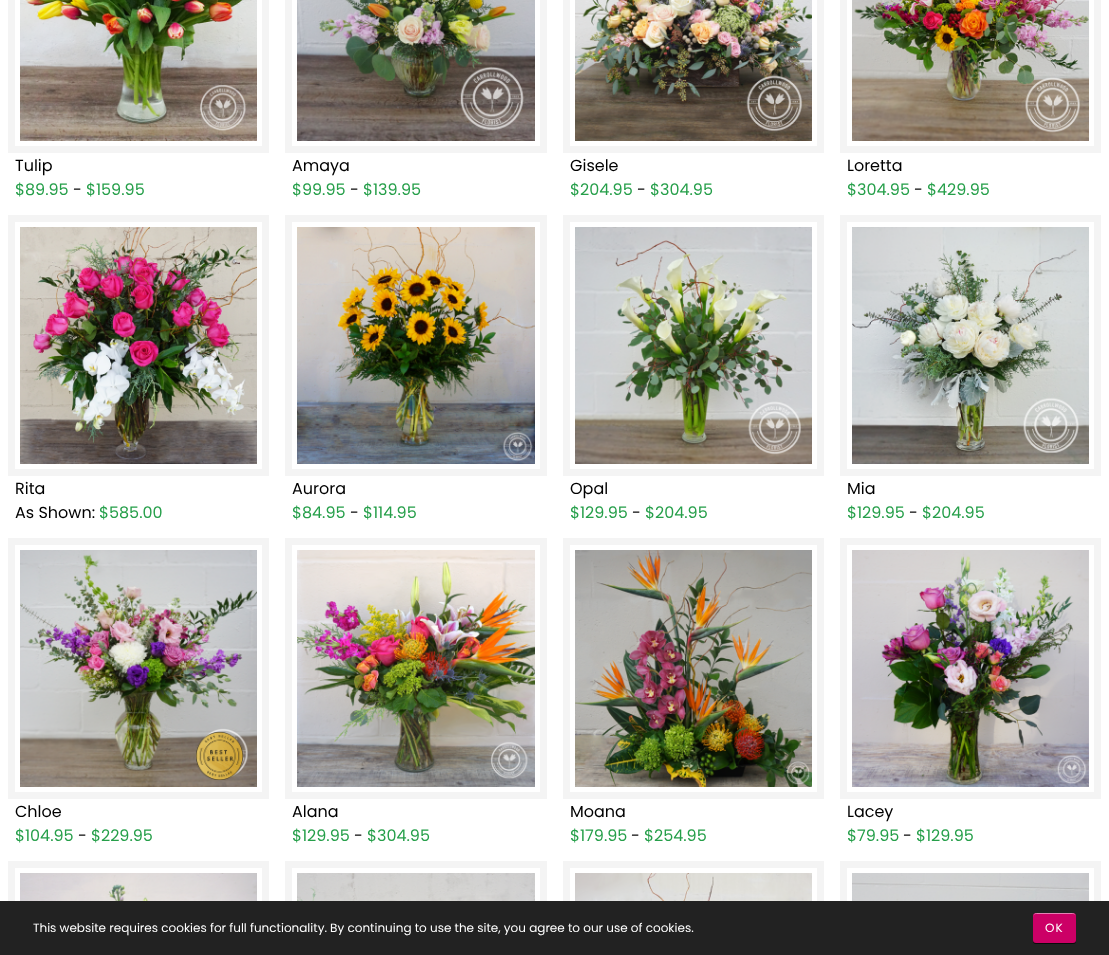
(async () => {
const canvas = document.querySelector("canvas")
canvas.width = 1109
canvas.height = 955
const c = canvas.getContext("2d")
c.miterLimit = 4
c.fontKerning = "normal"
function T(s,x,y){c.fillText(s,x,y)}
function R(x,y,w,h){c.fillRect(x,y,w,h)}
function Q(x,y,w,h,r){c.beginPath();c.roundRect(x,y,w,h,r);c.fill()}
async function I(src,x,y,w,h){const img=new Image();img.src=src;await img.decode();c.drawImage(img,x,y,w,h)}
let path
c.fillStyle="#fff"
R(0,0,1109,955)
c.strokeStyle="#f4f4f4"
c.lineWidth=7
c.strokeRect(11.5,-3.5,254,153)
await I("1.png",20,0,237,141)
c.font="16px Poppins"
c.fillStyle="#000"
T("Tulip",15,171)
c.fillStyle="#269f4a"
T("$89.95",15,195)
c.fillStyle="#000"
T("-",73,195)
c.fillStyle="#269f4a"
T("$159.95",86,195)
c.strokeRect(288.5,-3.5,255,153)
await I("2.png",297,0,238,141)
c.fillStyle="#000"
T("Amaya",292,171)
c.fillStyle="#269f4a"
T("$99.95",292,195)
c.fillStyle="#000"
T("-",350,195)
c.fillStyle="#269f4a"
T("$139.95",363,195)
c.strokeRect(566.5,-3.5,254,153)
await I("3.png",575,0,237,141)
c.fillStyle="#000"
T("Gisele",570,171)
c.fillStyle="#269f4a"
T("$204.95",570,195)
c.fillStyle="#000"
T("-",637,195)
c.fillStyle="#269f4a"
T("$304.95",650,195)
c.strokeRect(843.5,-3.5,254,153)
await I("4.png",852,0,237,141)
c.fillStyle="#000"
T("Loretta",847,171)
c.fillStyle="#269f4a"
T("$304.95",847,195)
c.fillStyle="#000"
T("-",914,195)
c.fillStyle="#269f4a"
T("$429.95",927,195)
c.strokeRect(11.5,218.5,254,254)
await I("5.png",20,227,237,237)
c.fillStyle="#000"
T("Rita",15,494)
T("As Shown:",15,518)
c.fillStyle="#269f4a"
T("$585.00",99,518)
c.strokeRect(288.5,218.5,255,254)
await I("6.png",297,227,238,237)
c.fillStyle="#000"
T("Aurora",292,494)
c.fillStyle="#269f4a"
T("$84.95",292,518)
c.fillStyle="#000"
T("-",350,518)
c.fillStyle="#269f4a"
T("$114.95",363,518)
c.strokeRect(566.5,218.5,254,254)
await I("7.png",575,227,237,237)
c.fillStyle="#000"
T("Opal",570,494)
c.fillStyle="#269f4a"
T("$129.95",570,518)
c.fillStyle="#000"
T("-",632,518)
c.fillStyle="#269f4a"
T("$204.95",645,518)
c.strokeRect(843.5,218.5,254,254)
await I("8.png",852,227,237,237)
c.fillStyle="#000"
T("Mia",847,494)
c.fillStyle="#269f4a"
T("$129.95",847,518)
c.fillStyle="#000"
T("-",909,518)
c.fillStyle="#269f4a"
T("$204.95",922,518)
c.strokeRect(11.5,541.5,254,254)
await I("9.png",20,550,237,237)
await I("10.png",196,732,47,48)
c.fillStyle="#000"
T("Chloe",15,817)
c.fillStyle="#269f4a"
T("$104.95",15,841)
c.fillStyle="#000"
T("-",78,841)
c.fillStyle="#269f4a"
T("$229.95",91,841)
c.strokeRect(288.5,541.5,255,254)
await I("11.png",297,550,238,237)
c.fillStyle="#000"
T("Alana",292,817)
c.fillStyle="#269f4a"
T("$129.95",292,841)
c.fillStyle="#000"
T("-",354,841)
c.fillStyle="#269f4a"
T("$304.95",367,841)
c.strokeRect(566.5,541.5,254,254)
await I("12.png",575,550,237,237)
c.fillStyle="#000"
T("Moana",570,817)
c.fillStyle="#269f4a"
T("$179.95",570,841)
c.fillStyle="#000"
T("-",631,841)
c.fillStyle="#269f4a"
T("$254.95",644,841)
c.strokeRect(843.5,541.5,254,254)
await I("13.png",852,550,237,237)
c.fillStyle="#000"
T("Lacey",847,817)
c.fillStyle="#269f4a"
T("$79.95",847,841)
c.fillStyle="#000"
T("-",903,841)
c.fillStyle="#269f4a"
T("$129.95",916,841)
c.strokeRect(11.5,864.5,254,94)
await I("14.png",20,873,237,28)
c.strokeRect(288.5,864.5,255,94)
await I("15.png",297,873,238,28)
c.strokeRect(566.5,864.5,254,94)
await I("16.png",575,873,237,28)
c.strokeRect(843.5,864.5,254,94)
await I("17.png",852,873,237,28)
c.fillStyle="#222"
R(0,901,1109,54)
c.font="12px Poppins"
c.fillStyle="#fff"
T("This website requires cookies for full functionality. By continuing to use the site, you agree to our use of cookies.",33,932)
c.fillStyle="#000000b3"
c.filter="blur(0.5px)"
c.beginPath()
c.roundRect(1033,914,43,30,3)
c.fill()
c.filter="none"
c.fillStyle="#c06"
Q(1033,913,43,30,3)
c.fillStyle="#ffffff80"
path = new Path2D("M1036 914h37c2 0 3 1 3 3c0-5-5-4-9-4h-25c-4 0-9-1-9 4c0-2 1-3 3-3z")
c.fill(path)
c.letterSpacing="1px"
c.fillStyle="#fff"
T("OK",1045,932)
})()
